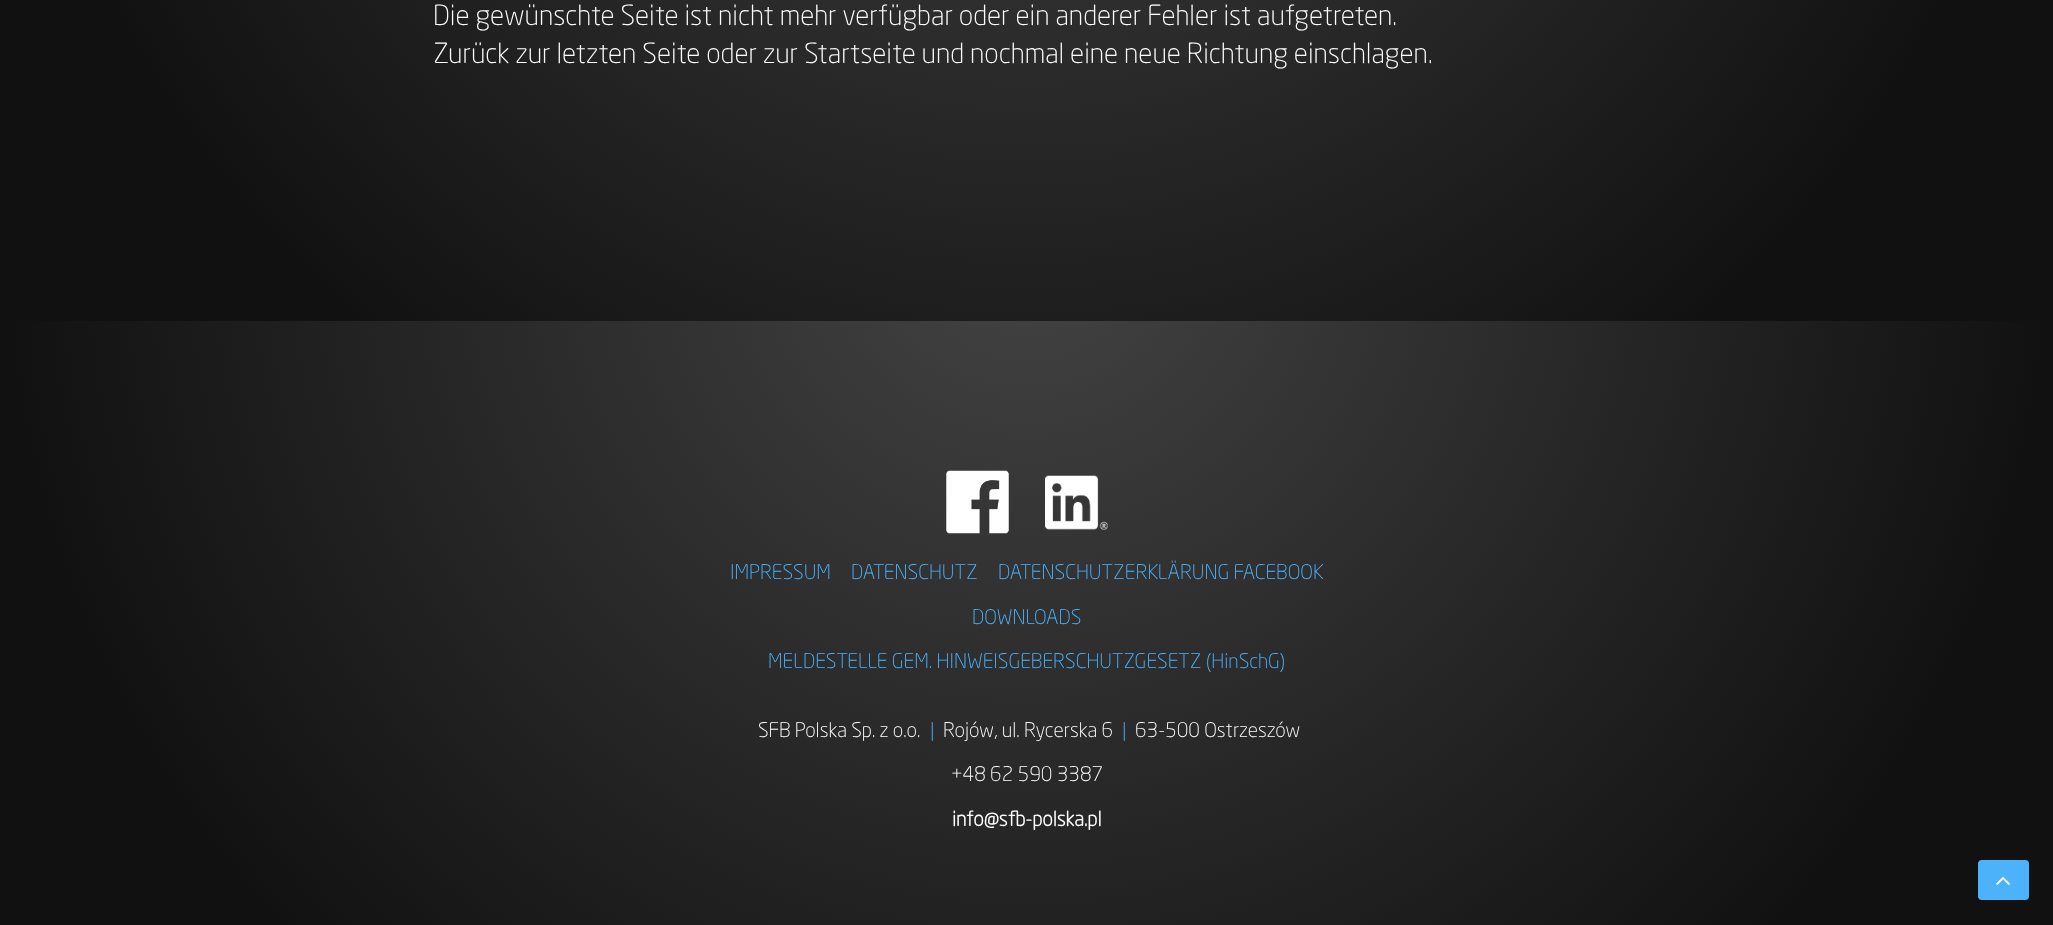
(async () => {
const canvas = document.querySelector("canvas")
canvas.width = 2053
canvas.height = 925
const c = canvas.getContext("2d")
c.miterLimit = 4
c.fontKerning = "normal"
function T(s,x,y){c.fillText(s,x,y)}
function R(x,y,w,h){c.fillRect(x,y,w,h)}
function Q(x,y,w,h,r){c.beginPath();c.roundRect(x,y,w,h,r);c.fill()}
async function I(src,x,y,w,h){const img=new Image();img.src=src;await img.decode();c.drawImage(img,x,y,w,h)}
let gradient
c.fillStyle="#fff"
R(0,0,2053,925)
gradient = c.createRadialGradient(1027,-452,0,1027,-452,1031)
gradient.addColorStop(0,"#444")
gradient.addColorStop(1,"#111")
c.fillStyle = gradient
R(0,0,2053,321)
c.font="300 27.5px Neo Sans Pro"
c.fillStyle="#fff"
T("Die gewünschte Seite ist nicht mehr verfügbar oder ein anderer Fehler ist aufgetreten.",433,25)
T("Zurück zur letzten Seite oder zur Startseite und nochmal eine neue Richtung einschlagen.",433,63)
gradient = c.createRadialGradient(1027,228,0,1027,228,1031)
gradient.addColorStop(0,"#444")
gradient.addColorStop(1,"#111")
c.fillStyle = gradient
R(0,321,2053,604)
await I("1.png",946,470,63,64)
await I("2.png",1045,475,63,55)
c.font="300 20px Neo Sans Pro"
c.fillStyle="#4bb2fb"
T("IMPRESSUM",730,579)
T("DATENSCHUTZ",851,579)
T("DATENSCHUTZERKLÄRUNG FACEBOOK",998,579)
T("DOWNLOADS",972,624)
T("MELDESTELLE GEM. HINWEISGEBERSCHUTZGESETZ (HinSchG)",768,668)
c.fillStyle="#fff"
T("SFB Polska Sp. z o.o.",758,737)
c.fillStyle="#4bb2fb"
T("|",930,737)
c.fillStyle="#fff"
T("Rojów, ul. Rycerska 6",943,737)
c.fillStyle="#4bb2fb"
T("|",1122,737)
c.fillStyle="#fff"
T("63-500 Ostrzeszów",1135,737)
T("+48 62 590 3387",951,781)
c.font="bold 20px Neo Sans Pro"
T("info@sfb-polska.pl",952,826)
c.fillStyle="#4bb2fb"
Q(1978,860,51,40,4)
await I("3.png",1996,876,14,9)
})()
